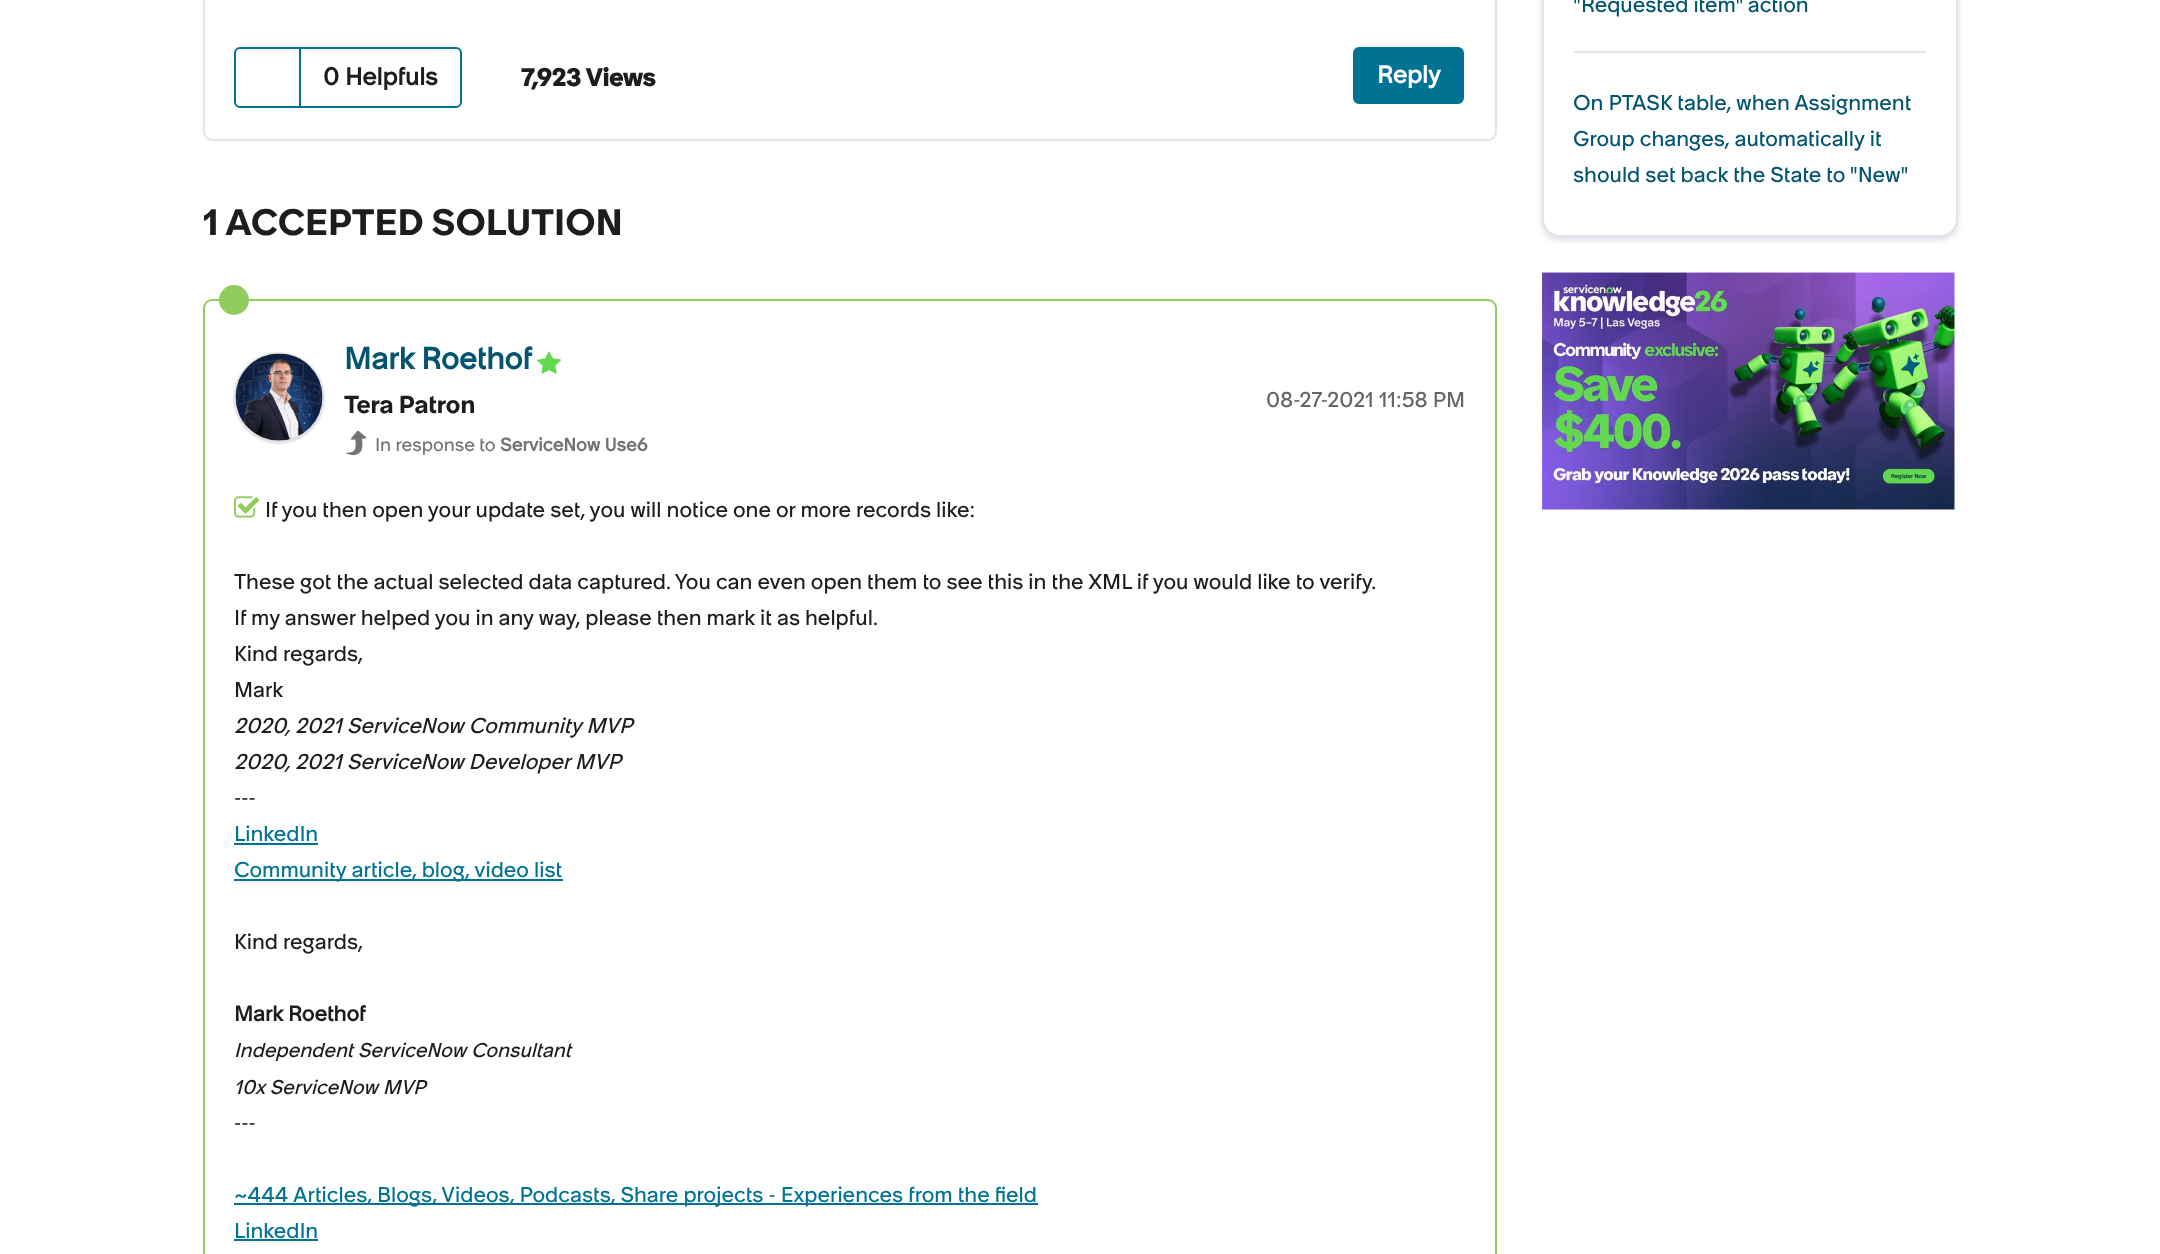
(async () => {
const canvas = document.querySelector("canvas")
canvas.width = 2160
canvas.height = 1254
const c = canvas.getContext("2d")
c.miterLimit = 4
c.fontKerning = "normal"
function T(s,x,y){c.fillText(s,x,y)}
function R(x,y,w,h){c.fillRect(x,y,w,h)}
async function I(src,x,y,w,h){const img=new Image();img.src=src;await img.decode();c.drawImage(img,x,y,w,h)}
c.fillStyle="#fff"
R(0,0,2160,1254)
c.beginPath()
c.roundRect(204,-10,1292,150,8)
c.strokeStyle="#e4e4e4"
c.lineWidth=2
c.stroke()
c.beginPath()
c.roundRect(235,48,226,59,5)
c.strokeStyle="#007393"
c.stroke()
c.fillStyle="#007393"
R(299,48,2,59)
c.font="bold 24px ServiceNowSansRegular"
c.fillStyle="#1d1d1d"
T("0 Helpfuls",323,85)
c.font="bold 24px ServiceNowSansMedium"
T("7,923 Views",521,86)
c.fillStyle="#007393"
c.beginPath()
c.roundRect(1354,48,109,55,5)
c.fill()
c.stroke()
c.font="bold 24px ServiceNowSansRegular"
c.fillStyle="#fff"
T("Reply",1377,83)
c.font="500 36px ServiceNowSansMedium"
c.fillStyle="#1d1d1d"
T("1 ACCEPTED SOLUTION",203,235)
c.beginPath()
c.roundRect(204,300,1292,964,8)
c.strokeStyle="#91cc5e"
c.stroke()
c.fillStyle="#91cc5e"
c.beginPath()
c.arc(234,300,15,0,7)
c.fill()
c.fillStyle="#c4c4c4"
c.filter="blur(1px)"
c.beginPath()
c.roundRect(234,353,90,90,45)
c.fill()
c.filter="none"
c.beginPath()
c.arc(279,398,44,0,7)
c.strokeStyle="#e4e4e4"
c.stroke()
await I("1.png",235,353,88,88)
c.font="bold 30px ServiceNowSansRegular"
c.fillStyle="#025470"
T("Mark Roethof",344,369)
await I("2.png",537,351,24,23)
c.save()
c.beginPath()
c.rect(344,384,304,42)
c.clip()
c.font="500 24px ServiceNowSansMedium"
c.fillStyle="#1d1d1d"
T("Tera Patron",344,413)
c.restore()
await I("3.png",346,430,21,26)
c.font="18px ServiceNowSansRegular"
c.fillStyle="#747474"
T("In response to",375,451)
c.font="bold 18px ServiceNowSansRegular"
T("ServiceNow Use6",500,451)
c.font="21px ServiceNowSansRegular"
c.fillStyle="#656565"
T("08-27-2021",1266,407)
T("11:58 PM",1379,407)
await I("4.png",234,496,25,22)
c.fillStyle="#1d1d1d"
T("If you then open your update set, you will notice one or more records like:",265,517)
T("These got the actual selected data captured. You can even open them to see this in the XML if you would like to verify.",234,589)
T("If my answer helped you in any way, please then mark it as helpful.",234,625)
T("Kind regards,",234,661)
T("Mark",234,697)
c.font="italic 21px ServiceNowSansRegular"
T("2020, 2021 ServiceNow Community MVP",234,733)
T("2020, 2021 ServiceNow Developer MVP",234,769)
c.font="21px ServiceNowSansRegular"
T("---",234,805)
c.fillStyle="#007393"
T("LinkedIn",234,841)
R(234,843,84,2)
R(234,879,329,2)
T("Community article, blog, video list",234,877)
c.fillStyle="#1d1d1d"
T("Kind regards,",234,949)
c.font="bold 21px ServiceNowSansRegular"
T("Mark Roethof",234,1021)
c.font="italic 19.5px ServiceNowSansRegular"
T("Independent ServiceNow Consultant",234,1057)
T("10x ServiceNow MVP",234,1094)
c.font="21px ServiceNowSansRegular"
T("---",234,1130)
c.fillStyle="#007393"
R(234,1203,804,2)
T("~444 Articles, Blogs, Videos, Podcasts, Share projects - Experiences from the field",234,1202)
T("LinkedIn",234,1238)
R(234,1239,84,2)
c.fillStyle="#7171a140"
c.filter="blur(3px)"
c.beginPath()
c.roundRect(1542,-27,416,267,18)
c.fill()
c.filter="none"
c.fillStyle="#fff"
c.beginPath()
c.roundRect(1543,-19,414,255,17)
c.fill()
c.stroke()
c.fillStyle="#e4e4e4"
R(1574,51,352,2)
c.fillStyle="#025470"
T("\"Requested item\" action",1573,12)
T("On PTASK table, when Assignment",1573,110)
T("Group changes, automatically it",1573,146)
T("should set back the State to \"New\"",1573,182)
await I("5.png",1542,272,413,238)
})()
